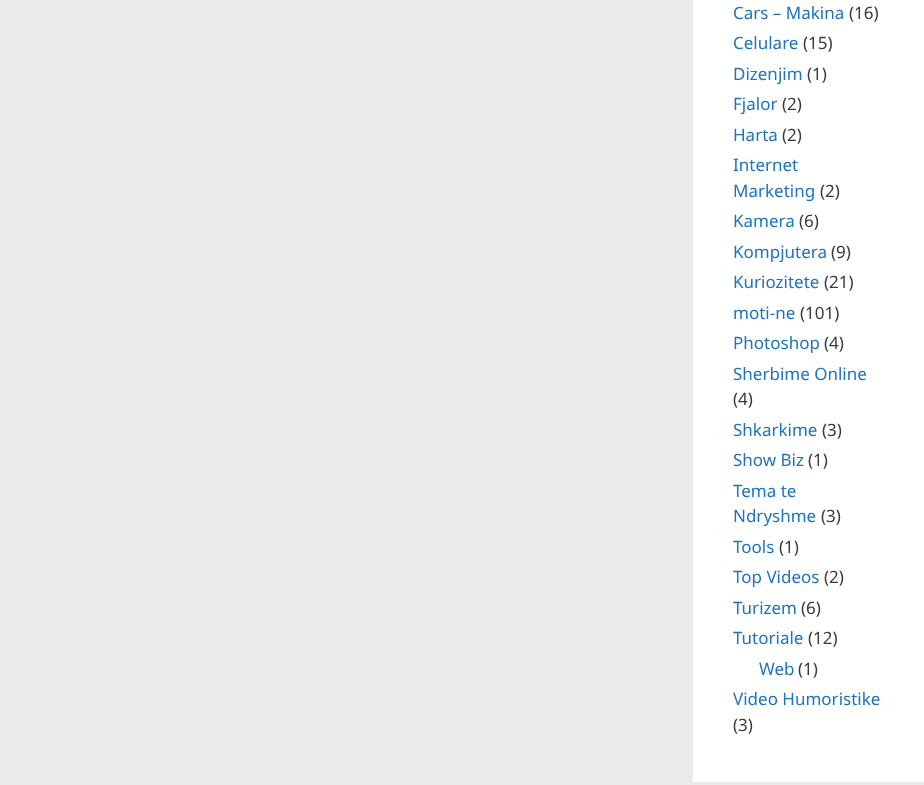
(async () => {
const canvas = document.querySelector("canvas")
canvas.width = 924
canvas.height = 785
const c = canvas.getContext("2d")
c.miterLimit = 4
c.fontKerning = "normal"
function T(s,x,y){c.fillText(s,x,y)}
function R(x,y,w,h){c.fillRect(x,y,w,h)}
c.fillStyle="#eaeaea"
R(0,0,924,785)
c.fillStyle="#fff"
R(693,0,231,782)
c.font="17px Noto Sans"
c.fillStyle="#1e73be"
T("Cars – Makina",733,19)
c.fillStyle="#3a3a3a"
T("(16)",849,19)
c.fillStyle="#1e73be"
T("Celulare",733,49)
c.fillStyle="#3a3a3a"
T("(15)",803,49)
c.fillStyle="#1e73be"
T("Dizenjim",733,80)
c.fillStyle="#3a3a3a"
T("(1)",807,80)
c.fillStyle="#1e73be"
T("Fjalor",733,110)
c.fillStyle="#3a3a3a"
T("(2)",782,110)
c.fillStyle="#1e73be"
T("Harta",733,141)
c.fillStyle="#3a3a3a"
T("(2)",782,141)
c.fillStyle="#1e73be"
T("Internet",733,171)
T("Marketing",733,197)
c.fillStyle="#3a3a3a"
T("(2)",820,197)
c.fillStyle="#1e73be"
T("Kamera",733,227)
c.fillStyle="#3a3a3a"
T("(6)",799,227)
c.fillStyle="#1e73be"
T("Kompjutera",733,258)
c.fillStyle="#3a3a3a"
T("(9)",831,258)
c.fillStyle="#1e73be"
T("Kuriozitete",733,288)
c.fillStyle="#3a3a3a"
T("(21)",824,288)
c.fillStyle="#1e73be"
T("moti-ne",733,319)
c.fillStyle="#3a3a3a"
T("(101)",800,319)
c.fillStyle="#1e73be"
T("Photoshop",733,349)
c.fillStyle="#3a3a3a"
T("(4)",824,349)
c.fillStyle="#1e73be"
T("Sherbime Online",733,380)
c.fillStyle="#3a3a3a"
T("(4)",733,405)
c.fillStyle="#1e73be"
T("Shkarkime",733,436)
c.fillStyle="#3a3a3a"
T("(3)",822,436)
c.fillStyle="#1e73be"
T("Show Biz",733,466)
c.fillStyle="#3a3a3a"
T("(1)",808,466)
c.fillStyle="#1e73be"
T("Tema te",733,497)
T("Ndryshme",733,522)
c.fillStyle="#3a3a3a"
T("(3)",821,522)
c.fillStyle="#1e73be"
T("Tools",733,553)
c.fillStyle="#3a3a3a"
T("(1)",779,553)
c.fillStyle="#1e73be"
T("Top Videos",733,583)
c.fillStyle="#3a3a3a"
T("(2)",824,583)
c.fillStyle="#1e73be"
T("Turizem",733,614)
c.fillStyle="#3a3a3a"
T("(6)",801,614)
c.fillStyle="#1e73be"
T("Tutoriale",733,644)
c.fillStyle="#3a3a3a"
T("(12)",808,644)
c.fillStyle="#1e73be"
T("Web",759,675)
c.fillStyle="#3a3a3a"
T("(1)",798,675)
c.fillStyle="#1e73be"
T("Video Humoristike",733,705)
c.fillStyle="#3a3a3a"
T("(3)",733,731)
})()
